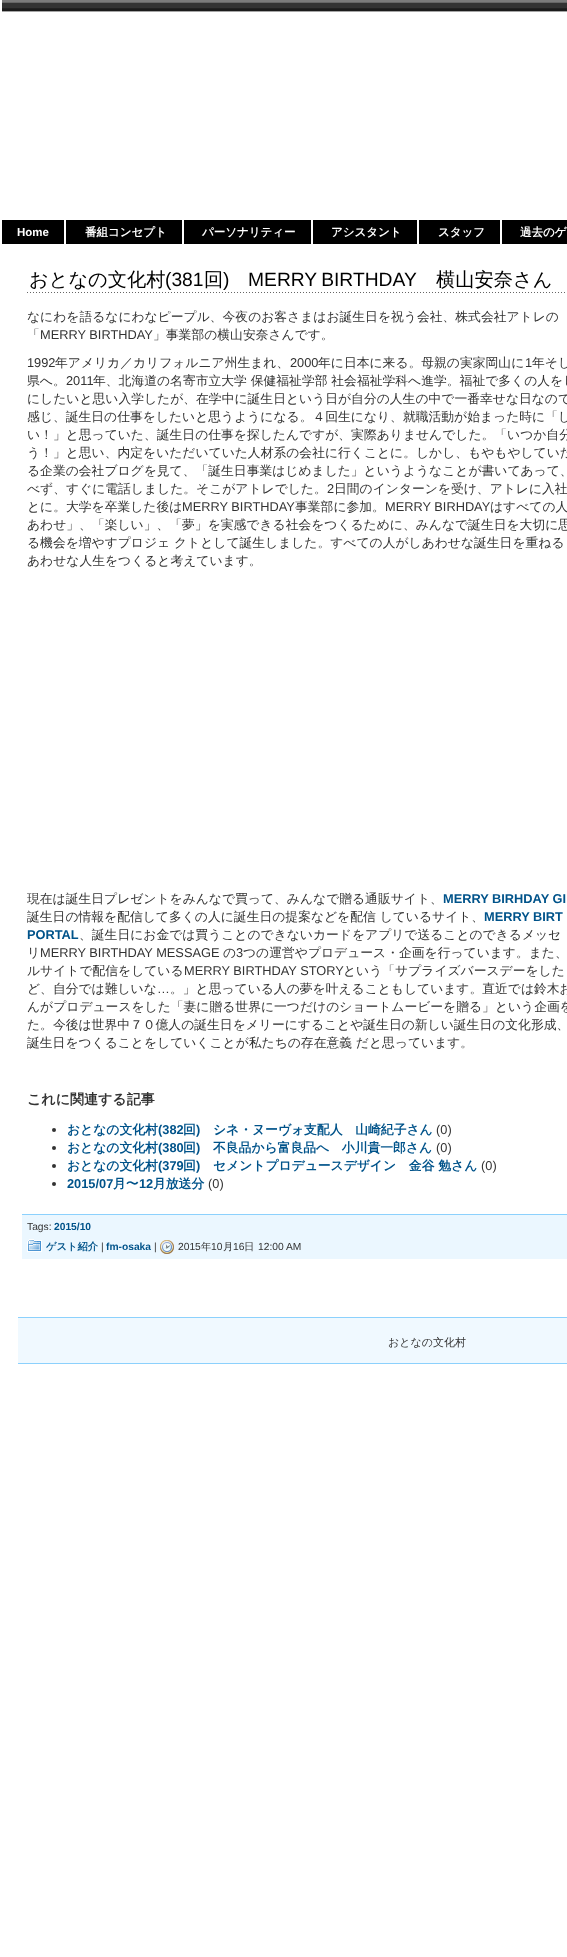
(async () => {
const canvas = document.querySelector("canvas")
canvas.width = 567
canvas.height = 1957
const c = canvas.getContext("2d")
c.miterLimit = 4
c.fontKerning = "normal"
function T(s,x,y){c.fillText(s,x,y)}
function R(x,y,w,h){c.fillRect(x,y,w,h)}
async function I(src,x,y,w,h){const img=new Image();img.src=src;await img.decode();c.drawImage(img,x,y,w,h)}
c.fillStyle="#fff"
R(0,0,567,1957)
await I("1.png",2,0,565,12)
c.fillStyle="#000"
R(2,220,565,24)
c.font="bold 11.5px Liberation Sans"
c.fillStyle="#fff"
T("Home",17,236)
R(64,220,2,24)
c.font="bold 11.5px WenQuanYi Zen Hei"
T("番組コンセプト",85,236)
R(182,220,2,24)
T("パーソナリティー",202,236)
R(311,220,2,24)
T("アシスタント",331,236)
R(417,220,2,24)
T("スタッフ",438,236)
R(500,220,2,24)
T("過去のゲ",520,236)
await I("2.png",27,292,538,1)
c.font="500 19.25px WenQuanYi Zen Hei"
c.fillStyle="#000"
T("おとなの文化村",29,286)
c.font="19.25px Liberation Sans"
T("(381",165,286)
c.font="500 19.25px WenQuanYi Zen Hei"
T("回",204,286)
c.font="19.25px Liberation Sans"
T(")",223,286)
c.wordSpacing="-1px"
T("MERRY BIRTHDAY",248,286)
c.wordSpacing="0px"
c.font="500 19.25px WenQuanYi Zen Hei"
T("横山安奈さん",436,286)
c.font="500 12.8px WenQuanYi Zen Hei"
c.fillStyle="#333"
T("なにわを語るなにわなピープル、今夜のお客さまはお誕生日を祝う会社、株式会社アトレの",27,321)
T("「",27,339)
c.font="12.8px Liberation Sans"
T("MERRY BIRTHDAY",40,339)
c.font="500 12.8px WenQuanYi Zen Hei"
T("」事業部の横山安奈さんです。",153,339)
c.font="12.8px Liberation Sans"
T("1992",27,367)
c.font="500 12.8px WenQuanYi Zen Hei"
T("年アメリカ／カリフォルニア州生まれ、",55,367)
c.font="12.8px Liberation Sans"
T("2000",290,367)
c.font="500 12.8px WenQuanYi Zen Hei"
T("年に日本に来る。母親の実家岡山に",318,367)
c.font="12.8px Liberation Sans"
T("1",525,367)
c.font="500 12.8px WenQuanYi Zen Hei"
T("年そし",532,367)
T("県へ。",27,385)
c.font="12.8px Liberation Sans"
T("2011",66,385)
c.font="500 12.8px WenQuanYi Zen Hei"
T("年、北海道の名寄市立大学 保健福祉学部 社会福祉学科へ進学。福祉で多くの人をし",93,385)
T("にしたいと思い入学したが、在学中に誕生日という日が自分の人生の中で一番幸せな日なので",27,403)
T("感じ、誕生日の仕事をしたいと思うようになる。４回生になり、就職活動が始まった時に「し",27,421)
T("い！」と思っていた、誕生日の仕事を探したんですが、実際ありませんでした。「いつか自分",27,439)
T("う！」と思い、内定をいただいていた人材系の会社に行くことに。しかし、もやもやしていた",27,457)
T("る企業の会社ブログを見て、「誕生日事業はじめました」というようなことが書いてあって、",27,475)
T("べず、すぐに電話しました。そこがアトレでした。",27,493)
c.font="12.8px Liberation Sans"
T("2",327,493)
c.font="500 12.8px WenQuanYi Zen Hei"
T("日間のインターンを受け、アトレに入社",334,493)
T("とに。大学を卒業した後は",27,511)
c.font="12.8px Liberation Sans"
T("MERRY BIRTHDAY",182,511)
c.font="500 12.8px WenQuanYi Zen Hei"
T("事業部に参加。",295,511)
c.font="12.8px Liberation Sans"
T("MERRY BIRHDAY",385,511)
c.font="500 12.8px WenQuanYi Zen Hei"
T("はすべての人",490,511)
T("あわせ」、「楽しい」、「夢」を実感できる社会をつくるために、みんなで誕生日を大切に思",27,529)
T("る機会を増やすプロジェ クトとして誕生しました。すべての人がしあわせな誕生日を重ねる",27,547)
T("あわせな人生をつくると考えています。",27,565)
T("現在は誕生日プレゼントをみんなで買って、みんなで贈る通販サイト、",27,903)
c.font="bold 12.8px Liberation Sans"
c.fillStyle="#00538a"
T("MERRY BIRHDAY GI",443,903)
c.font="500 12.8px WenQuanYi Zen Hei"
c.fillStyle="#333"
T("誕生日の情報を配信して多くの人に誕生日の提案などを配信 しているサイト、",27,921)
c.font="bold 12.8px Liberation Sans"
c.fillStyle="#00538a"
T("MERRY BIRT",484,921)
T("PORTAL",27,939)
c.font="500 12.8px WenQuanYi Zen Hei"
c.fillStyle="#333"
T("、誕生日にお金では買うことのできないカードをアプリで送ることのできるメッセ",79,939)
T("リ",27,957)
c.font="12.8px Liberation Sans"
T("MERRY BIRTHDAY MESSAGE",40,957)
c.font="500 12.8px WenQuanYi Zen Hei"
T("の",223,957)
c.font="12.8px Liberation Sans"
T("3",236,957)
c.font="500 12.8px WenQuanYi Zen Hei"
T("つの運営やプロデュース・企画を行っています。また、",243,957)
T("ルサイトで配信をしている",27,975)
c.font="12.8px Liberation Sans"
T("MERRY BIRTHDAY STORY",184,975)
c.font="500 12.8px WenQuanYi Zen Hei"
T("という「サプライズバースデーをした",343,975)
T("ど、自分では難しいな",27,993)
c.font="12.8px Liberation Sans"
T("…",157,993)
c.font="500 12.8px WenQuanYi Zen Hei"
T("。」と思っている人の夢を叶えることもしています。直近では鈴木お",170,993)
T("んがプロデュースをした「妻に贈る世界に一つだけのショートムービーを贈る」という企画を",27,1011)
T("た。今後は世界中７０億人の誕生日をメリーにすることや誕生日の新しい誕生日の文化形成、",27,1029)
T("誕生日をつくることをしていくことが私たちの存在意義 だと思っています。",27,1047)
c.font="bold 14px WenQuanYi Zen Hei"
T("これに関連する記事",27,1104)
c.beginPath()
c.arc(54,1130,2,0,7)
c.fill()
c.font="bold 12.8px WenQuanYi Zen Hei"
c.fillStyle="#00538a"
T("おとなの文化村",67,1134)
c.font="bold 12.8px Liberation Sans"
T("(382",158,1134)
c.font="bold 12.8px WenQuanYi Zen Hei"
T("回",183,1134)
c.font="bold 12.8px Liberation Sans"
T(")",196,1134)
c.font="bold 12.8px WenQuanYi Zen Hei"
T("シネ・ヌーヴォ支配人　山崎紀子さん",213,1134)
c.font="12.8px Liberation Sans"
c.fillStyle="#333"
T("(0)",436,1134)
c.beginPath()
c.arc(54,1148,2,0,7)
c.fill()
c.font="bold 12.8px WenQuanYi Zen Hei"
c.fillStyle="#00538a"
T("おとなの文化村",67,1152)
c.font="bold 12.8px Liberation Sans"
T("(380",158,1152)
c.font="bold 12.8px WenQuanYi Zen Hei"
T("回",183,1152)
c.font="bold 12.8px Liberation Sans"
T(")",196,1152)
c.font="bold 12.8px WenQuanYi Zen Hei"
T("不良品から富良品へ　小川貴一郎さん",213,1152)
c.font="12.8px Liberation Sans"
c.fillStyle="#333"
T("(0)",436,1152)
c.beginPath()
c.arc(54,1166,2,0,7)
c.fill()
c.font="bold 12.8px WenQuanYi Zen Hei"
c.fillStyle="#00538a"
T("おとなの文化村",67,1170)
c.font="bold 12.8px Liberation Sans"
T("(379",158,1170)
c.font="bold 12.8px WenQuanYi Zen Hei"
T("回",183,1170)
c.font="bold 12.8px Liberation Sans"
T(")",196,1170)
c.font="bold 12.8px WenQuanYi Zen Hei"
T("セメントプロデュースデザイン　金谷 勉さん",213,1170)
c.font="12.8px Liberation Sans"
c.fillStyle="#333"
T("(0)",481,1170)
c.beginPath()
c.arc(54,1184,2,0,7)
c.fill()
c.font="bold 12.8px Liberation Sans"
c.fillStyle="#00538a"
T("2015/07",67,1188)
c.font="bold 12.8px WenQuanYi Zen Hei"
T("月〜",113,1188)
c.font="bold 12.8px Liberation Sans"
T("12",139,1188)
c.font="bold 12.8px WenQuanYi Zen Hei"
T("月放送分",153,1188)
c.font="12.8px Liberation Sans"
c.fillStyle="#333"
T("(0)",208,1188)
c.fillStyle="#ebf7ff"
R(22,1215,545,44)
c.fillStyle="#8cd1fd"
R(22,1214,545,1)
c.font="10.25px Liberation Sans"
c.fillStyle="#333"
T("Tags:",27,1230)
c.font="bold 10.25px Liberation Sans"
c.fillStyle="#00538a"
T("2015/10",54,1230)
await I("3.png",27,1239,15,13)
c.font="bold 10.25px WenQuanYi Zen Hei"
T("ゲスト紹介",46,1250)
c.font="10.25px Liberation Sans"
c.fillStyle="#333"
T("|",101,1250)
c.font="bold 10.25px Liberation Sans"
c.fillStyle="#00538a"
T("fm-osaka",106,1250)
c.font="10.25px Liberation Sans"
c.fillStyle="#333"
T("|",154,1250)
await I("4.png",160,1240,14,14)
T("2015",178,1250)
c.font="500 10.25px WenQuanYi Zen Hei"
T("年",201,1250)
c.font="10.25px Liberation Sans"
T("10",211,1250)
c.font="500 10.25px WenQuanYi Zen Hei"
T("月",223,1250)
c.font="10.25px Liberation Sans"
T("16",233,1250)
c.font="500 10.25px WenQuanYi Zen Hei"
T("日",244,1250)
c.font="10.25px Liberation Sans"
T("12:00 AM",258,1250)
c.fillStyle="#f0f9ff"
R(18,1318,549,45)
c.fillStyle="#8cd1fd"
R(18,1317,549,1)
R(18,1363,549,1)
c.font="500 11px WenQuanYi Zen Hei"
c.fillStyle="#333"
T("おとなの文化村",388,1346)
})()
